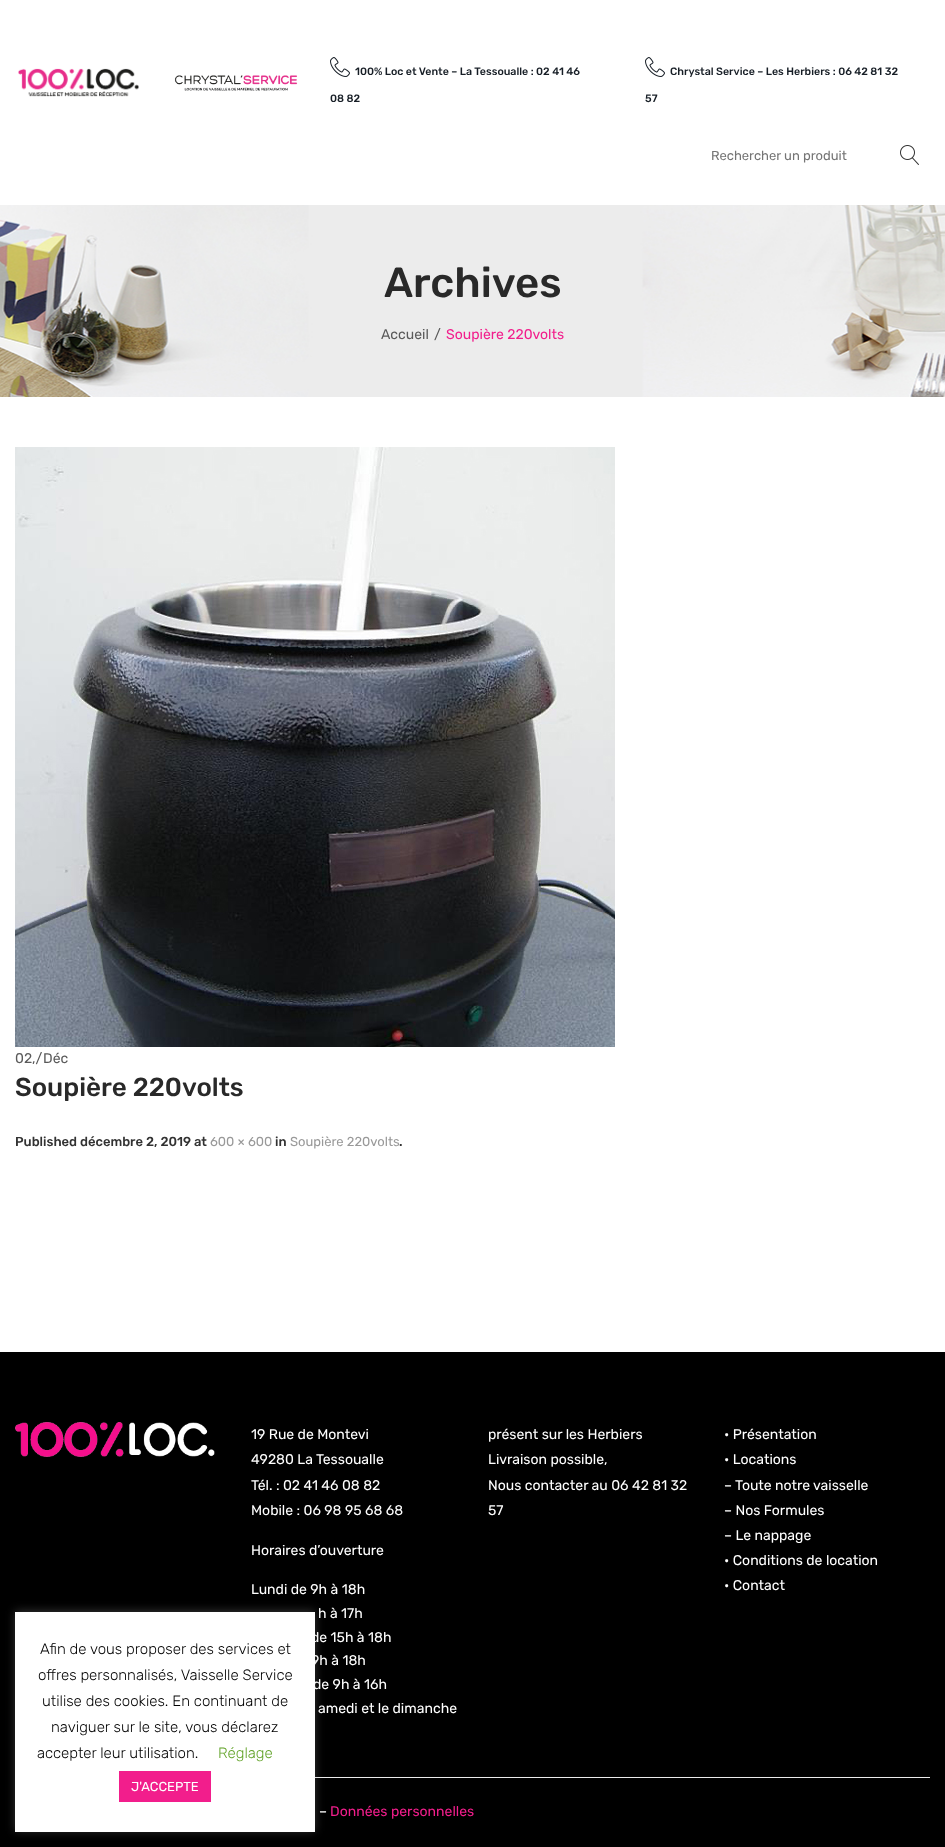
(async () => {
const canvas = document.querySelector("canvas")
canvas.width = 945
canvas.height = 1847
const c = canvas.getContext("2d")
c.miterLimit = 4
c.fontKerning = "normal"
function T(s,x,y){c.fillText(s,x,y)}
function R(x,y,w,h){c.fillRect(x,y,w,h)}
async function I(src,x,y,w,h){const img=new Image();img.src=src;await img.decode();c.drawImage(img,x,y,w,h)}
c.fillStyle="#fff"
R(0,0,945,1847)
await I("1.png",18,68,121,29)
await I("2.png",174,75,124,16)
await I("3.png",330,57,20,20)
c.font="500 10.7px Rubik"
c.fillStyle="#171e26"
T("100% Loc et Vente – La Tessoualle : 02 41 46",355,75)
T("08 82",330,102)
await I("3.png",645,57,20,20)
T("Chrystal Service – Les Herbiers : 06 42 81 32",670,75)
T("57",645,102)
c.font="13px Rubik"
c.fillStyle="#757575"
T("Rechercher un produit",711,160)
await I("4.png",900,145,19,20)
await I("5.png",0,205,945,192)
c.font="500 42px Rubik"
c.fillStyle="#292929"
T("Archives",384,297)
c.font="14px Rubik"
c.fillStyle="#5a5a5a"
T("Accueil",381,339)
T("/",434,339)
c.fillStyle="#f21e8c"
T("Soupière 220volts",446,339)
await I("6.png",15,447,600,600)
c.fillStyle="#5a5a5a"
T("02,/",15,1063)
T("Déc",43,1063)
c.font="500 26px Rubik"
c.fillStyle="#292929"
T("Soupière 220volts",15,1096)
c.font="500 13px Rubik"
c.fillStyle="#323232"
T("Published décembre 2, 2019 at",15,1146)
c.font="13px Rubik"
c.fillStyle="#999"
T("600 × 600",210,1146)
c.font="500 13px Rubik"
c.fillStyle="#323232"
T("in",275,1146)
c.font="13px Rubik"
c.fillStyle="#999"
T("Soupière 220volts",290,1146)
c.font="500 13px Rubik"
c.fillStyle="#323232"
T(".",399,1146)
c.fillStyle="#000"
R(0,1352,945,495)
await I("7.png",15,1422,200,35)
c.font="14px Rubik"
c.fillStyle="#fff"
T("19 Rue de Montevi",251,1439)
T("49280 La Tessoualle",251,1464)
T("Tél. : 02 41 46 08 82",251,1490)
T("Mobile : 06 98 95 68 68",251,1515)
T("Horaires d’ouverture",251,1555)
T("Lundi de 9h à 18h",251,1594)
T("h à 17h",318,1618)
T("de 15h à 18h",311,1642)
T("9h à 18h",311,1665)
T("de 9h à 16h",313,1689)
T("amedi et le dimanche",318,1713)
T("présent sur les Herbiers",488,1439)
T("Livraison possible,",488,1464)
T("Nous contacter au 06 42 81 32",488,1490)
T("57",488,1515)
T("• Présentation",724,1439)
T("• Locations",724,1464)
T("– Toute notre vaisselle",724,1490)
T("– Nos Formules",724,1515)
T("– Le nappage",724,1540)
T("• Conditions de location",724,1565)
T("• Contact",724,1590)
c.fillStyle="#ebebeb"
R(315,1777,615,1)
c.fillStyle="#fff"
T("–",319,1816)
c.fillStyle="#f21e8c"
T("Données personnelles",330,1816)
c.fillStyle="#acabab4d"
c.filter="blur(5px)"
c.beginPath()
c.rect(15,1611,300,220)
c.fill()
c.filter="none"
c.fillStyle="#fff"
R(15,1612,300,220)
c.font="300 15px Rubik"
c.fillStyle="#000"
T("Afin de vous proposer des services et",40,1654)
T("offres personnalisés, Vaisselle Service",38,1680)
T("utilise des cookies. En continuant de",42,1706)
T("naviguer sur le site, vous déclarez",51,1732)
T("accepter leur utilisation.",37,1758)
c.fillStyle="#62a329"
T("Réglage",218,1758)
c.fillStyle="#f21e8c"
R(119,1771,92,31)
c.font="13px Rubik"
c.fillStyle="#fff"
T("J'ACCEPTE",131,1791)
})()
